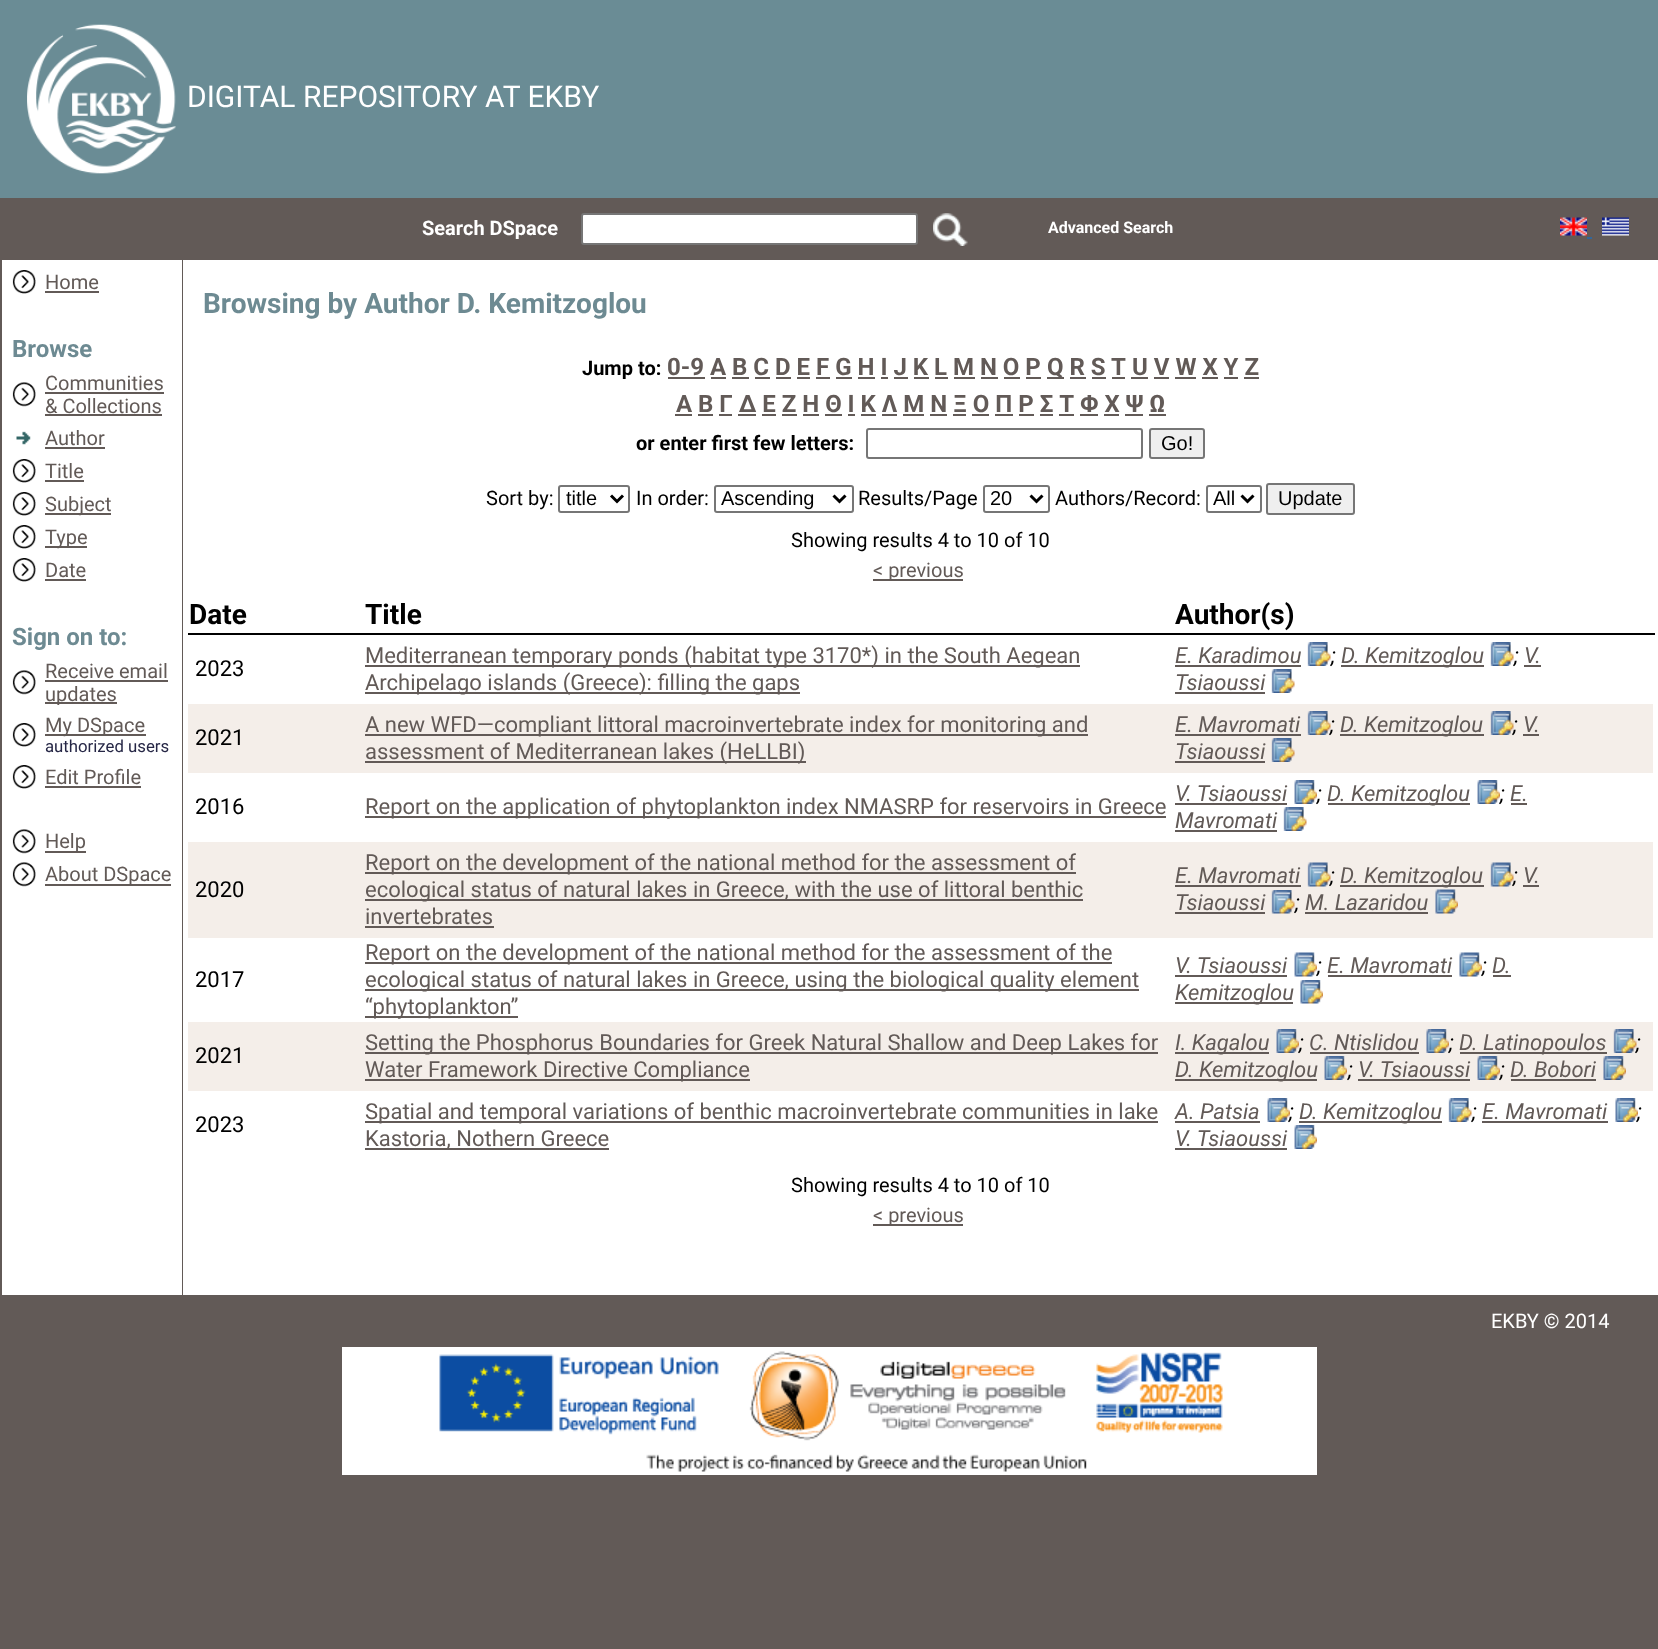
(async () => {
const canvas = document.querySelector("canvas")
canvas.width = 1658
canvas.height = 1649
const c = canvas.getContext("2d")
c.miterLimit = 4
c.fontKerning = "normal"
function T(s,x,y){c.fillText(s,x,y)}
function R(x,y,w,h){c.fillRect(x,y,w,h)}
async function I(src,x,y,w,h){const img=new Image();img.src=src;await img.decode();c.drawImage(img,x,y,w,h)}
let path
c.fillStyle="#625a57"
R(0,0,1658,1649)
c.fillStyle="#6a8c95"
R(0,0,1658,198)
await I("1.png",27,24,149,150)
c.font="30px Roboto"
c.fillStyle="#fff"
T("DIGITAL REPOSITORY AT EKBY",187,107)
c.font="bold 20px Roboto"
T("Search DSpace",422,235)
c.beginPath()
c.roundRect(582,214,335,30,2)
c.fill()
c.strokeStyle="#767676"
c.lineWidth=2
c.stroke()
await I("2.png",933,213,35,33)
c.font="bold 16px Roboto"
T("Advanced Search",1048,233)
await I("3.png",1560,217,27,19)
await I("4.png",1602,217,27,19)
c.fillStyle="#369"
R(1587,237,5,2)
c.fillStyle="#fff"
R(2,260,180,1035)
await I("5.png",12,270,24,24)
c.font="20px Roboto"
c.fillStyle="#625a57"
T("Home",45,289)
R(45,291,54,2)
c.font="bold 24px Roboto"
c.fillStyle="#6d8a92"
T("Browse",12,357)
await I("6.png",12,382,24,25)
c.font="20px Roboto"
c.fillStyle="#625a57"
T("Communities",45,390)
R(45,392,119,2)
T("& Collections",45,413)
R(45,414,117,2)
await I("7.png",16,431,15,14)
T("Author",45,445)
R(45,447,60,2)
await I("5.png",12,459,24,24)
T("Title",45,478)
R(45,480,39,2)
await I("5.png",12,492,24,24)
R(45,513,66,2)
T("Subject",45,511)
await I("5.png",12,525,24,24)
R(45,546,42,2)
T("Type",45,544)
await I("5.png",12,558,24,24)
T("Date",45,577)
R(45,579,41,2)
c.font="bold 24px Roboto"
c.fillStyle="#6d8a92"
T("Sign on to:",12,645)
await I("6.png",12,670,24,25)
c.font="20px Roboto"
c.fillStyle="#625a57"
T("Receive email",45,678)
R(45,680,123,2)
R(45,702,72,2)
T("updates",45,701)
await I("5.png",12,723,24,24)
R(45,734,101,2)
T("My DSpace",45,732)
c.font="16.75px Roboto"
c.fillStyle="#252645"
T("authorized users",45,752)
await I("5.png",12,765,24,24)
c.font="20px Roboto"
c.fillStyle="#625a57"
T("Edit Profile",45,784)
R(45,786,96,2)
await I("6.png",12,829,24,25)
R(45,851,41,2)
T("Help",45,848)
await I("6.png",12,862,24,25)
R(45,884,126,2)
T("About DSpace",45,881)
c.fillStyle="#fff"
R(183,260,1475,1035)
c.font="bold 28px Roboto"
c.fillStyle="#6d8a92"
T("Browsing by Author D. Kemitzoglou",203,313)
c.font="bold 20px Roboto"
c.fillStyle="#000"
T("Jump to:",582,375)
c.font="bold 24px Roboto"
c.fillStyle="#625a57"
T("0-9 A B C D E F G H I J K L M N O P",667,375)
R(668,377,37,2)
R(1047,377,17,2)
T("Q R S",1047,375)
T("T",1111,375)
R(1112,377,13,2)
T("U V W X Y Z",1132,375)
R(1131,377,17,2)
R(711,377,15,2)
R(732,377,17,2)
R(755,377,15,2)
R(776,377,15,2)
R(797,377,13,2)
R(816,377,14,2)
R(836,377,16,2)
R(858,377,17,2)
R(881,377,7,2)
R(894,377,14,2)
R(914,377,15,2)
R(935,377,13,2)
R(954,377,21,2)
R(981,377,17,2)
R(1004,377,16,2)
R(1026,377,15,2)
R(1070,377,16,2)
R(1092,377,14,2)
R(1154,377,15,2)
R(1175,377,21,2)
R(1202,377,16,2)
R(1224,377,14,2)
R(1244,377,15,2)
T("Α Β Γ Δ Ε Ζ Η Θ Ι Κ Λ Μ Ν Ξ Ο Π Ρ Σ Τ Φ Χ Ψ Ω",676,412)
R(675,414,17,2)
R(698,414,15,2)
R(719,414,13,2)
R(738,414,18,2)
R(762,414,14,2)
R(782,414,15,2)
R(803,414,16,2)
R(825,414,17,2)
R(848,414,7,2)
R(861,414,15,2)
R(882,414,15,2)
R(903,414,21,2)
R(930,414,17,2)
R(953,414,13,2)
R(972,414,17,2)
R(995,414,18,2)
R(1019,414,15,2)
R(1040,414,13,2)
R(1059,414,15,2)
R(1080,414,18,2)
R(1104,414,15,2)
R(1125,414,18,2)
R(1149,414,17,2)
c.font="bold 20px Roboto"
c.fillStyle="#000"
T("or enter first few letters:",636,450)
c.beginPath()
c.roundRect(867,429,275,29,2)
c.stroke()
c.fillStyle="#efefef"
c.beginPath()
c.roundRect(1150,429,54,29,2)
c.fill()
c.stroke()
c.font="20px Liberation Sans"
c.fillStyle="#000"
T("Go!",1161,450)
c.font="20px Roboto"
T("Sort by:",486,505)
c.beginPath()
c.roundRect(559,486,70,26,2)
c.stroke()
path = new Path2D("M611 495.5l6 6l6-6")
c.strokeStyle="#000"
c.lineWidth=3
c.stroke(path)
c.font="20px Liberation Sans"
T("title",566,505)
c.font="20px Roboto"
T("In order:",636,505)
c.beginPath()
c.roundRect(715,486,138,26,2)
c.strokeStyle="#767676"
c.lineWidth=2
c.stroke()
path = new Path2D("M833.5 495.5l6 6l6-6")
c.strokeStyle="#000"
c.lineWidth=3
c.stroke(path)
c.font="20px Liberation Sans"
T("Ascending",721,505)
c.font="20px Roboto"
T("Results/Page",858,505)
c.beginPath()
c.roundRect(984,486,65,26,2)
c.strokeStyle="#767676"
c.lineWidth=2
c.stroke()
path = new Path2D("M1030.5 495.5l6 6l6-6")
c.strokeStyle="#000"
c.lineWidth=3
c.stroke(path)
c.font="20px Liberation Sans"
T("20",990,505)
c.font="20px Roboto"
T("Authors/Record:",1055,505)
c.beginPath()
c.roundRect(1207,486,54,26,2)
c.strokeStyle="#767676"
c.lineWidth=2
c.stroke()
path = new Path2D("M1241.5 495.5l6 6l6-6")
c.strokeStyle="#000"
c.lineWidth=3
c.stroke(path)
c.font="20px Liberation Sans"
T("All",1213,505)
c.fillStyle="#efefef"
c.beginPath()
c.roundRect(1267,484,87,30,2)
c.fill()
c.strokeStyle="#767676"
c.lineWidth=2
c.stroke()
c.fillStyle="#000"
T("Update",1278,505)
c.font="20px Roboto"
T("Showing results 4 to 10 of 10",791,547)
c.fillStyle="#625a57"
R(873,579,90,2)
T("< previous",873,577)
c.font="bold 28px Roboto"
c.fillStyle="#000"
T("Date",189,624)
T("Title",365,624)
R(188,633,1467,2)
T("Author(s)",1175,624)
c.font="22px Roboto"
T("2023",195,676)
c.fillStyle="#625a57"
R(365,665,715,2)
T("Mediterranean temporary ponds (habitat type 3170*) in the South Aegean",365,663)
R(365,692,435,2)
T("Archipelago islands (Greece): filling the gaps",365,690)
c.font="italic 22px Roboto"
T("E. Karadimou",1175,663)
R(1175,665,126,2)
await I("8.png",1307,642,24,24)
c.fillStyle="#000"
T(";",1331,663)
c.fillStyle="#625a57"
R(1341,665,143,2)
T("D. Kemitzoglou",1341,663)
await I("8.png",1490,642,24,24)
c.fillStyle="#000"
T(";",1514,663)
c.fillStyle="#625a57"
R(1524,665,17,2)
T("V.",1524,663)
T("Tsiaoussi",1175,690)
R(1175,692,90,2)
await I("9.png",1271,669,24,24)
c.fillStyle="#f4eee9"
R(188,704,1465,69)
c.font="22px Roboto"
c.fillStyle="#000"
T("2021",195,745)
c.fillStyle="#625a57"
R(365,734,723,2)
T("A new WFD—compliant littoral macroinvertebrate index for monitoring and",365,732)
R(365,761,441,2)
T("assessment of Mediterranean lakes (HeLLBI)",365,759)
c.font="italic 22px Roboto"
T("E. Mavromati",1175,732)
R(1175,734,126,2)
await I("10.png",1307,711,24,24)
c.fillStyle="#000"
T(";",1330,732)
c.fillStyle="#625a57"
R(1340,734,144,2)
T("D. Kemitzoglou",1340,732)
await I("10.png",1490,711,24,24)
T("V.",1523,732)
c.fillStyle="#000"
T(";",1513,732)
c.fillStyle="#625a57"
R(1523,734,16,2)
T("Tsiaoussi",1175,759)
R(1175,761,90,2)
await I("11.png",1271,738,24,24)
c.font="22px Roboto"
c.fillStyle="#000"
T("2016",195,814)
c.fillStyle="#625a57"
R(365,816,801,2)
T("Report on the application of phytoplankton index NMASRP for reservoirs in Greece",365,814)
c.font="italic 22px Roboto"
T("V. Tsiaoussi",1175,801)
R(1175,803,112,2)
await I("12.png",1294,780,23,24)
c.fillStyle="#000"
T(";",1317,801)
c.fillStyle="#625a57"
R(1328,803,142,2)
T("D. Kemitzoglou",1327,801)
await I("13.png",1477,780,23,24)
c.fillStyle="#000"
T(";",1500,801)
c.fillStyle="#625a57"
R(1511,803,16,2)
T("E.",1510,801)
T("Mavromati",1175,828)
R(1175,830,102,2)
await I("8.png",1283,807,24,24)
c.fillStyle="#f4eee9"
R(188,842,1465,96)
c.font="22px Roboto"
c.fillStyle="#000"
T("2020",195,897)
c.fillStyle="#625a57"
R(365,872,711,2)
T("Report on the development of the national method for the assessment of",365,870)
R(365,899,718,2)
T("ecological status of natural lakes in Greece, with the use of littoral benthic",365,897)
T("invertebrates",365,924)
R(365,926,129,2)
c.font="italic 22px Roboto"
T("E. Mavromati",1175,883)
R(1175,885,126,2)
await I("14.png",1307,862,24,25)
c.fillStyle="#000"
T(";",1330,883)
c.fillStyle="#625a57"
R(1340,885,144,2)
T("D. Kemitzoglou",1340,883)
await I("14.png",1490,862,24,25)
T("V.",1523,883)
c.fillStyle="#000"
T(";",1513,883)
c.fillStyle="#625a57"
R(1523,885,16,2)
T("Tsiaoussi",1175,910)
R(1175,912,90,2)
await I("15.png",1271,890,24,24)
c.fillStyle="#000"
T(";",1295,910)
c.fillStyle="#625a57"
R(1305,912,123,2)
T("M. Lazaridou",1305,910)
await I("16.png",1435,889,23,25)
c.font="22px Roboto"
c.fillStyle="#000"
T("2017",195,987)
c.fillStyle="#625a57"
R(365,962,747,2)
T("Report on the development of the national method for the assessment of the",365,960)
R(365,989,774,2)
T("ecological status of natural lakes in Greece, using the biological quality element",365,987)
R(365,1016,153,2)
T("“phytoplankton”",365,1014)
c.font="italic 22px Roboto"
T("V. Tsiaoussi",1175,973)
R(1175,975,112,2)
await I("17.png",1294,952,23,25)
c.fillStyle="#000"
T(";",1317,973)
c.fillStyle="#625a57"
R(1328,975,124,2)
T("E. Mavromati",1327,973)
await I("18.png",1459,952,23,25)
c.fillStyle="#000"
T(";",1482,973)
c.fillStyle="#625a57"
R(1493,975,18,2)
T("D.",1492,973)
R(1175,1002,118,2)
T("Kemitzoglou",1175,1000)
await I("19.png",1300,980,23,24)
c.fillStyle="#f4eee9"
R(188,1022,1465,69)
c.font="22px Roboto"
c.fillStyle="#000"
T("2021",195,1063)
c.fillStyle="#625a57"
R(365,1052,793,2)
T("Setting the Phosphorus Boundaries for Greek Natural Shallow and Deep Lakes for",365,1050)
R(365,1079,385,2)
T("Water Framework Directive Compliance",365,1077)
R(1175,1052,94,2)
c.font="italic 22px Roboto"
T("I. Kagalou",1175,1050)
await I("20.png",1276,1029,23,24)
c.fillStyle="#000"
T(";",1299,1050)
c.fillStyle="#625a57"
R(1310,1052,109,2)
T("C. Ntislidou",1309,1050)
await I("21.png",1426,1029,23,24)
c.fillStyle="#000"
T(";",1449,1050)
c.fillStyle="#625a57"
R(1460,1052,147,2)
T("D. Latinopoulos",1459,1050)
await I("11.png",1613,1029,24,24)
c.fillStyle="#000"
T(";",1636,1050)
c.fillStyle="#625a57"
R(1175,1079,142,2)
T("D. Kemitzoglou",1175,1077)
await I("22.png",1324,1056,23,24)
c.fillStyle="#000"
T(";",1348,1077)
c.fillStyle="#625a57"
R(1358,1079,112,2)
T("V. Tsiaoussi",1358,1077)
await I("22.png",1477,1056,23,24)
c.fillStyle="#000"
T(";",1500,1077)
c.fillStyle="#625a57"
R(1511,1079,85,2)
T("D. Bobori",1510,1077)
await I("21.png",1603,1056,23,24)
c.font="22px Roboto"
c.fillStyle="#000"
T("2023",195,1132)
c.fillStyle="#625a57"
R(365,1121,793,2)
T("Spatial and temporal variations of benthic macroinvertebrate communities in lake",365,1119)
R(365,1148,244,2)
T("Kastoria, Nothern Greece",365,1146)
c.font="italic 22px Roboto"
T("A. Patsia",1175,1119)
R(1175,1121,85,2)
await I("23.png",1267,1098,23,24)
c.fillStyle="#000"
T(";",1289,1119)
c.fillStyle="#625a57"
R(1299,1121,143,2)
T("D. Kemitzoglou",1299,1119)
await I("8.png",1448,1098,24,24)
c.fillStyle="#000"
T(";",1472,1119)
c.fillStyle="#625a57"
R(1482,1121,126,2)
T("E. Mavromati",1482,1119)
await I("24.png",1615,1098,23,24)
c.fillStyle="#000"
T(";",1637,1119)
c.fillStyle="#625a57"
T("V. Tsiaoussi",1175,1146)
R(1175,1148,112,2)
await I("12.png",1294,1125,23,24)
c.font="20px Roboto"
c.fillStyle="#000"
T("Showing results 4 to 10 of 10",791,1192)
c.fillStyle="#625a57"
R(873,1224,90,2)
T("< previous",873,1222)
c.fillStyle="#fff"
T("EKBY © 2014",1491,1328)
R(342,1347,975,128)
await I("25.png",439,1354,280,81)
await I("26.png",749,1351,317,90)
await I("27.png",1096,1352,127,81)
await I("28.png",646,1454,441,18)
})()
